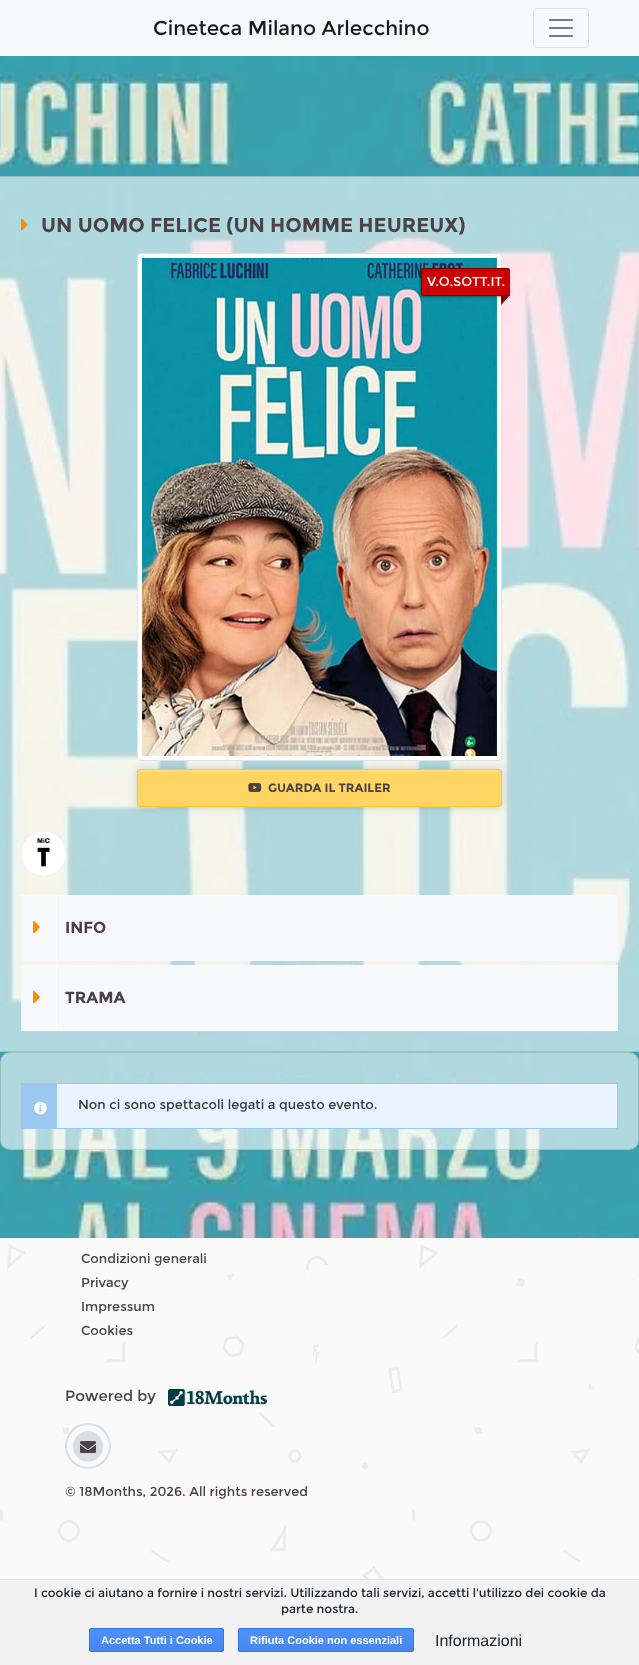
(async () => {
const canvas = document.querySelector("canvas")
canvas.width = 639
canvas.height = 1665
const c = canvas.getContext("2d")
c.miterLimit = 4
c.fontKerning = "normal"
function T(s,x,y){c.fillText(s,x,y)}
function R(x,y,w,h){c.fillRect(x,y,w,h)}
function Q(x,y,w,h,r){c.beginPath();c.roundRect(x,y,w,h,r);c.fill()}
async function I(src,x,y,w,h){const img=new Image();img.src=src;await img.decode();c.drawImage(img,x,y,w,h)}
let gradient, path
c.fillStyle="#fff"
R(0,0,639,1665)
c.fillStyle="#f8f9fa"
R(0,0,639,56)
c.font="20px Montserrat"
c.fillStyle="#191919"
T("Cineteca Milano Arlecchino",153,35)
c.beginPath()
c.roundRect(533.5,8.5,55,39,3.5)
c.strokeStyle="#dfe0e1"
c.stroke()
await I("1.png",549,19,24,18)
await I("2.png",0,56,639,1182)
c.fillStyle="#ffffff99"
R(0,176,639,876)
c.strokeStyle="#0000001f"
c.strokeRect(-.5,176.5,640,875)
await I("3.png",21,218,7,13)
c.font="bold 20px Montserrat"
c.fillStyle="#4c4145"
T("UN UOMO FELICE (UN HOMME HEUREUX)",41,232)
c.fillStyle="#00000029"
c.filter="blur(5px)"
c.beginPath()
c.roundRect(137,769,365,38,3)
c.fill()
c.filter="none"
c.fillStyle="#fff"
c.beginPath()
c.roundRect(137.5,253.5,364,507,3.5)
c.fill()
c.strokeStyle="#dee2e6"
c.stroke()
await I("4.png",142,258,355,498)
c.fillStyle="#00000066"
c.filter="blur(1px)"
c.beginPath()
c.roundRect(420,269,89,28,3)
c.fill()
c.filter="none"
c.fillStyle="#c00"
c.beginPath()
c.roundRect(421,268,89,28,[3,3,0,3])
c.fill()
c.fillStyle="#800000"
path = new Path2D("M424 268h83c2 0 3 1 3 3v25h-86c-2 0-3-1-3-3v-22c0-2 1-3 3-3zm0 1h83c2 0 3 1 3 2v24h-86c-1 0-2-1-2-2v-22c0-1 1-2 2-2z")
c.fill(path,"evenodd")
c.font="13px Montserrat"
c.fillStyle="#fff"
T("V.O.SOTT.IT.",427,286)
c.fillStyle="#800000"
path = new Path2D("M501 305v-10h9z")
c.fill(path)
c.fillStyle="#ffd564"
Q(137,769,365,38,3)
c.fillStyle="#ffdd83"
path = new Path2D("M140 772h359c1 0 2 1 2 2v-2c0-1-1-2-2-2h-359c-1 0-2 1-2 2v2c0-1 1-2 2-2z")
c.fill(path)
c.beginPath()
c.roundRect(137.5,769.5,364,37,2.5)
c.strokeStyle="#ffc936"
c.stroke()
await I("5.png",248,783,14,9)
c.font="bold 12px Montserrat"
c.fillStyle="#4c4145"
T("GUARDA IL TRAILER",268,792)
await I("6.png",21,831,45,45)
c.fillStyle="#fff"
R(21,895,3,3)
c.fillStyle="#f7f8f9"
c.beginPath()
c.roundRect(21,895,597,66,[3,0,0,0])
c.fill()
c.fillStyle="#fff"
R(56,896,1,64)
await I("7.png",33,921,7,13)
c.font="bold 16px Montserrat"
c.fillStyle="#4c4145"
T("INFO",65,933)
c.fillStyle="#fff"
R(615,965,3,3)
c.fillStyle="#f7f8f9"
c.beginPath()
c.roundRect(21,965,597,66,[0,3,0,0])
c.fill()
c.fillStyle="#fff"
R(56,966,1,64)
await I("7.png",33,991,7,13)
c.fillStyle="#4c4145"
T("TRAMA",65,1003)
c.fillStyle="#ffffff99"
Q(0,1052,639,98,10)
c.beginPath()
c.roundRect(.5,1052.5,638,97,9.5)
c.strokeStyle="#0000001f"
c.stroke()
c.fillStyle="#e7f4ff"
R(57,1084,560,44)
c.strokeStyle="#9ac8f1"
c.strokeRect(21.5,1083.5,596,45)
c.fillStyle="#9ac8f1"
R(22,1084,35,44)
await I("8.png",34,1101,13,14)
c.font="13px Montserrat"
c.fillStyle="#343a40"
T("Non ci sono spettacoli legati a questo evento.",78,1109)
await I("9.png",0,1238,639,341)
c.fillStyle="#4c4145"
T("Condizioni generali",81,1263)
T("Privacy",81,1287)
T("Impressum",81,1311)
T("Cookies",81,1335)
c.font="15px Montserrat"
T("Powered by",65,1401)
await I("10.png",168,1389,99,17)
c.fillStyle="#dbdee1"
Q(73,1431,30,31,15)
await I("11.png",80,1441,16,12)
c.beginPath()
c.arc(88,1446,22,0,7)
c.strokeStyle="#dbdee1"
c.lineWidth=2
c.stroke()
c.font="13px Montserrat"
c.fillStyle="#4c4145"
T("© 18Months, 2026. All rights reserved",65,1496)
c.fillStyle="#f2f2f2"
R(0,1580,639,85)
c.fillStyle="#e4e4e4"
R(0,1579,639,1)
c.font="12px Montserrat"
c.fillStyle="#212529"
T("I cookie ci aiutano a fornire i nostri servizi. Utilizzando tali servizi, accetti l'utilizzo dei cookie da",34,1597)
T("parte nostra.",281,1613)
c.save()
c.beginPath()
c.roundRect(89,1628,135,24,2)
c.clip()
gradient = c.createLinearGradient(157,1629,157,1651)
gradient.addColorStop(0,"#4d90fe")
gradient.addColorStop(1,"#4787ed")
c.fillStyle = gradient
R(89,1629,135,22)
c.restore()
c.beginPath()
c.roundRect(89.5,1628.5,134,23,1.5)
c.strokeStyle="#3079ed"
c.lineWidth=1
c.stroke()
c.font="bold 11px Liberation Sans"
c.fillStyle="#fff"
T("Accetta Tutti i Cookie",101,1644)
c.save()
c.beginPath()
c.roundRect(238,1628,176,24,2)
c.clip()
gradient = c.createLinearGradient(326,1629,326,1651)
gradient.addColorStop(0,"#4d90fe")
gradient.addColorStop(1,"#4787ed")
c.fillStyle = gradient
R(238,1629,176,22)
c.restore()
c.beginPath()
c.roundRect(238.5,1628.5,175,23,1.5)
c.stroke()
T("Rifiuta Cookie non essenziali",250,1644)
c.font="16px Liberation Sans"
c.fillStyle="#212529"
T("Informazioni",435,1646)
})()
